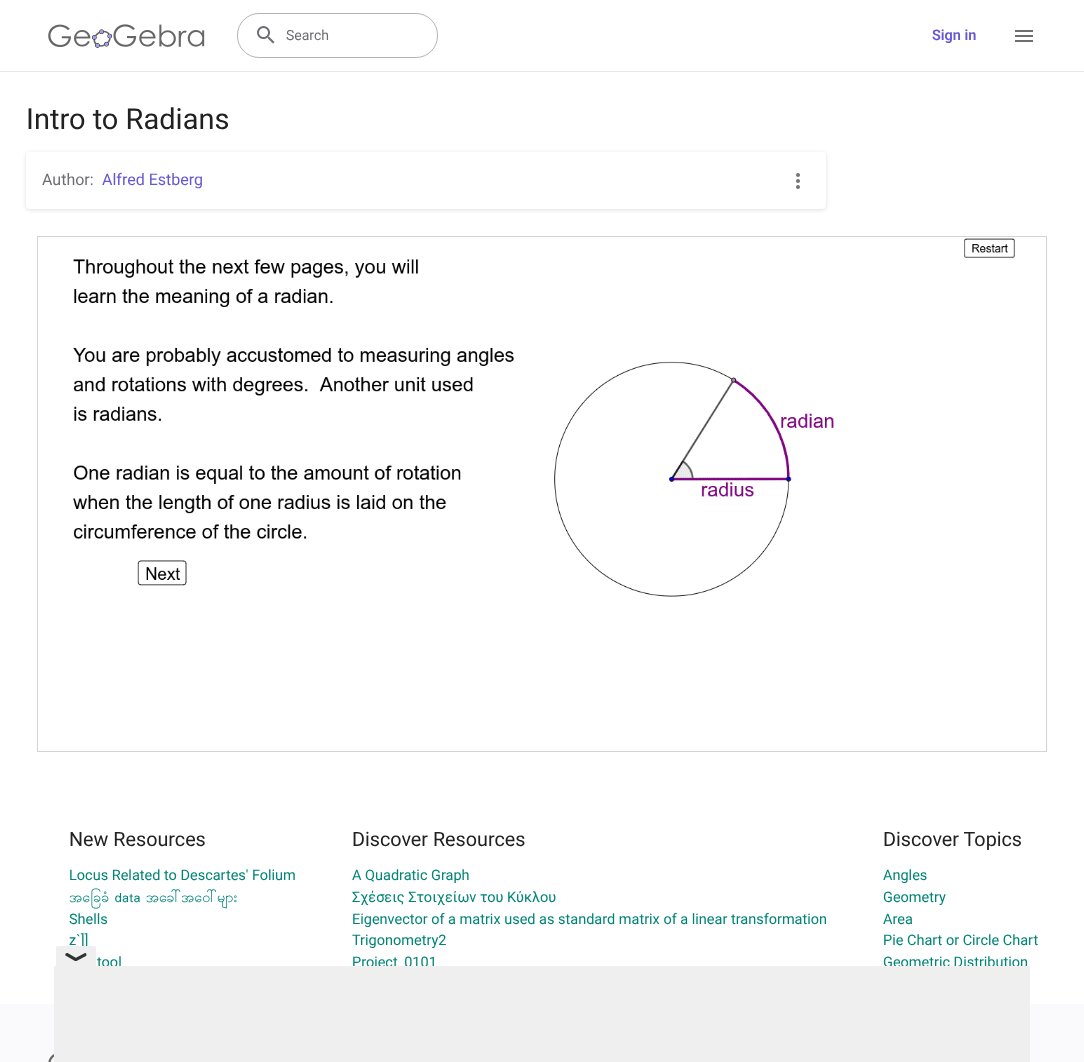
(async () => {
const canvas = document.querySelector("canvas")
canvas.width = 1084
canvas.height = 1062
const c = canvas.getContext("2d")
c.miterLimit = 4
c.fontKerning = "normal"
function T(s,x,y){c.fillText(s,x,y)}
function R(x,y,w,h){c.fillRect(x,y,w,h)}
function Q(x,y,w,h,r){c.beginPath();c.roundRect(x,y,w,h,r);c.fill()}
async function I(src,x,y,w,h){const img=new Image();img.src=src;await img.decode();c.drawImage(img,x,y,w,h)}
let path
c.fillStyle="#fff"
R(0,0,1084,1062)
c.fillStyle="#e6e6eb"
R(0,71,1084,1)
await I("1.png",48,24,157,24)
c.beginPath()
c.roundRect(237.5,13.5,200,44,21.5)
c.strokeStyle="#b4b3ba"
c.stroke()
await I("2.png",257,26,18,18)
c.font="14px Roboto"
c.fillStyle="#6e6d73"
T("Search",286,40)
c.font="600 14.5px Roboto"
c.fillStyle="#6557d2"
T("Sign in",932,40)
await I("3.png",1015,30,18,12)
c.font="29px Roboto"
c.fillStyle="#212121"
T("Intro to Radians",26,129)
c.fillStyle="#1c1c1f24"
c.filter="blur(2px)"
c.beginPath()
c.roundRect(26,153,800,57,4)
c.fill()
c.filter="none"
c.fillStyle="#fff"
Q(26,152,800,57,4)
c.font="16px Roboto"
c.fillStyle="#6e6d73"
T("Author:",42,185)
c.fillStyle="#6557d2"
T("Alfred Estberg",102,185)
await I("4.png",796,173,4,16)
await I("5.png",38,238,1008,513)
c.strokeStyle="#d3d3d3"
c.strokeRect(37.5,236.5,1009,515)
c.font="19.75px Roboto"
c.fillStyle="#212121"
T("New Resources",69,846)
c.font="14.5px Roboto"
c.fillStyle="#008475"
T("Locus Related to Descartes' Folium",69,880)
c.font="14.5px Padauk"
T("အခြေခံ data အခေါ်အဝေါ်များ",69,902)
c.font="14.5px Roboto"
T("Shells",69,924)
T("z`]]",69,945)
T("tool",97,967)
c.font="19.75px Roboto"
c.fillStyle="#212121"
T("Discover Resources",352,846)
c.font="14.5px Roboto"
c.fillStyle="#008475"
T("A Quadratic Graph",352,880)
T("Σχέσεις Στοιχείων του Κύκλου",352,902)
T("Eigenvector of a matrix used as standard matrix of a linear transformation",352,924)
T("Trigonometry2",352,945)
T("Project_0101",352,967)
c.font="19.75px Roboto"
c.fillStyle="#212121"
T("Discover Topics",883,846)
c.font="14.5px Roboto"
c.fillStyle="#008475"
T("Angles",883,880)
T("Geometry",883,902)
T("Area",883,924)
T("Pie Chart or Circle Chart",883,945)
T("Geometric Distribution",883,967)
c.fillStyle="#fafafc"
R(0,1004,1084,58)
await I("6.png",48,1054,6,8)
c.fillStyle="#efefef"
c.beginPath()
c.roundRect(56,946,40,20,[2,2,0,0])
c.fill()
c.fillStyle="#313131"
path = new Path2D("M67.5 953l9.5 5.5c.5 1.5-1 3-2 2.5l-9.5-5.5c-1-1.5 1-3 2-2.5z")
c.fill(path)
path = new Path2D("M75.5 958l9.5-5c1.5 0 2 2 1 3l-9.5 5c-1.5 0-2-2-1-3z")
c.fill(path)
c.fillStyle="#efefef"
R(54,966,976,96)
})()
